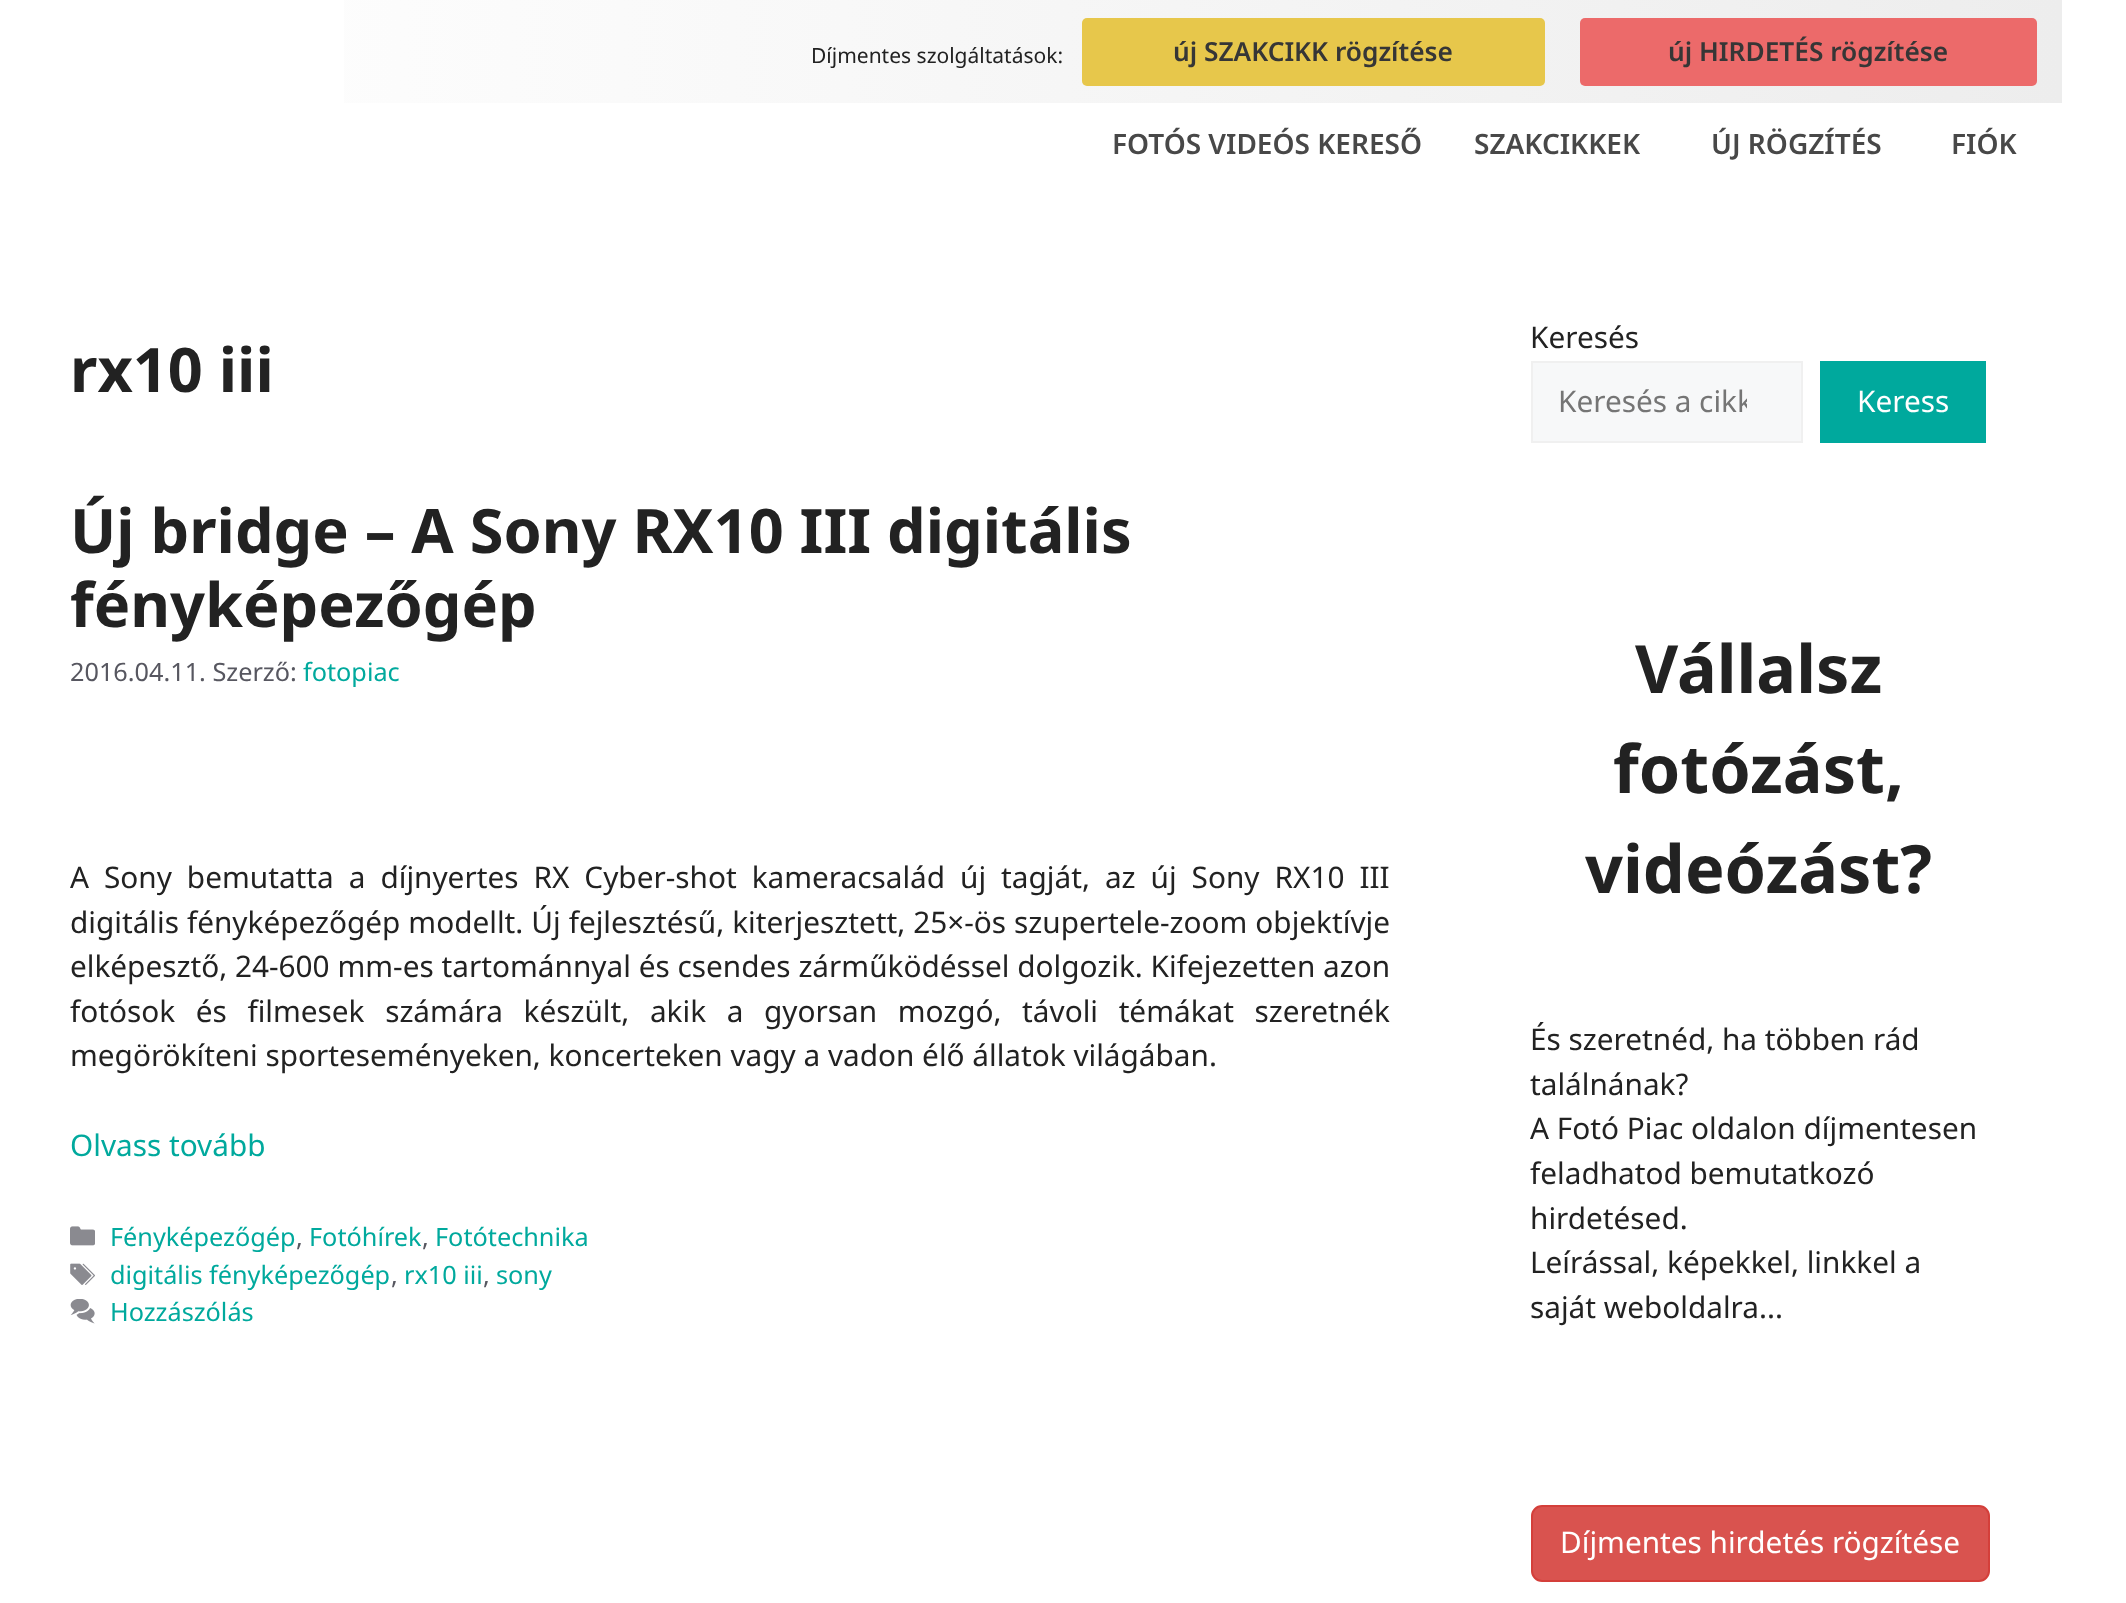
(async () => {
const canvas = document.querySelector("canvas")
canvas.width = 2126
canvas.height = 1603
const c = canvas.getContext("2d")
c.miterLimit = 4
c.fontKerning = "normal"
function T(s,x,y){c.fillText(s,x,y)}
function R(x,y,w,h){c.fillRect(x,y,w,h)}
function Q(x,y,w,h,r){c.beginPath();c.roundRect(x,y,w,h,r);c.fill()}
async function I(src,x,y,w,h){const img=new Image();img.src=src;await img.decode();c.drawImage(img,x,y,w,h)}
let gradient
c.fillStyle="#fff"
R(0,0,2126,1603)
gradient = c.createLinearGradient(2062,52,67,52)
gradient.addColorStop(0,"#ededed")
gradient.addColorStop(1,"#fff")
c.fillStyle = gradient
R(344,0,1718,103)
c.font="21px Noto Sans"
c.fillStyle="#222"
T("Díjmentes szolgáltatások:",811,63)
c.fillStyle="#e7c74b"
Q(1082,18,463,68,5)
c.font="600 26.25px Noto Sans"
c.fillStyle="#363636"
T("új SZAKCIKK rögzítése",1173,61)
c.fillStyle="#ec6a6a"
Q(1580,18,457,68,5)
c.fillStyle="#363636"
T("új HIRDETÉS rögzítése",1668,61)
c.font="600 28px Noto Sans"
c.fillStyle="#484848"
T("FOTÓS VIDEÓS KERESŐ",1112,154)
T("SZAKCIKKEK",1474,154)
T("ÚJ RÖGZÍTÉS",1711,154)
T("FIÓK",1951,154)
c.font="bold 61.25px Noto Sans"
c.fillStyle="#222"
T("rx10 iii",70,392)
T("Új bridge – A Sony RX10 III digitális",70,553)
T("fényképezőgép",70,627)
c.font="25.25px Noto Sans"
c.fillStyle="#575760"
T("2016.04.11. Szerző:",70,681)
c.fillStyle="#00a99d"
T("fotopiac",303,681)
c.wordSpacing="7.25px"
c.font="29.75px Noto Sans"
c.fillStyle="#222"
T("A Sony bemutatta a díjnyertes RX Cyber-shot kameracsalád új tagját, az új Sony RX10 III",70,888)
c.wordSpacing="0.25px"
T("digitális fényképezőgép modellt. Új fejlesztésű, kiterjesztett, 25×-ös szupertele-zoom objektívje",70,933)
c.wordSpacing="0.1px"
T("elképesztő, 24-600 mm-es tartománnyal és csendes zárműködéssel dolgozik. Kifejezetten azon",70,977)
c.wordSpacing="12.9px"
T("fotósok és filmesek számára készült, akik a gyorsan mozgó, távoli témákat szeretnék",70,1022)
c.wordSpacing="0px"
T("megörökíteni sporteseményeken, koncerteken vagy a vadon élő állatok világában.",70,1066)
c.fillStyle="#00a99d"
T("Olvass tovább",70,1156)
await I("1.png",70,1226,25,20)
c.font="25.25px Noto Sans"
T("Fényképezőgép",110,1246)
c.fillStyle="#575760"
T(",",296,1246)
c.fillStyle="#00a99d"
T("Fotóhírek",309,1246)
c.fillStyle="#575760"
T(",",422,1246)
c.fillStyle="#00a99d"
T("Fotótechnika",435,1246)
await I("2.png",70,1263,25,22)
T("digitális fényképezőgép",110,1284)
c.fillStyle="#575760"
T(",",391,1284)
c.fillStyle="#00a99d"
T("rx10 iii",404,1284)
c.fillStyle="#575760"
T(",",483,1284)
c.fillStyle="#00a99d"
T("sony",496,1284)
await I("3.png",70,1299,25,25)
T("Hozzászólás",110,1321)
c.font="29.75px Noto Sans"
c.fillStyle="#222"
T("Keresés",1530,348)
c.fillStyle="#f7f8f9"
c.beginPath()
c.rect(1532,362,270,80)
c.fill()
c.strokeStyle="#f0f0f0"
c.lineWidth=2
c.stroke()
c.save()
c.beginPath()
c.rect(1559,382,188,40)
c.clip()
c.fillStyle="#757575"
T("Keresés a cikk",1558,412)
c.restore()
c.fillStyle="#00a99d"
R(1820,361,166,82)
c.fillStyle="#fff"
T("Keress",1857,412)
c.font="bold 66.5px Noto Sans"
c.fillStyle="#222"
T("Vállalsz",1635,693)
T("fotózást,",1613,793)
T("videózást?",1585,893)
c.font="29.75px Noto Sans"
T("És szeretnéd, ha többen rád",1530,1050)
T("találnának?",1530,1095)
T("A Fotó Piac oldalon díjmentesen",1530,1139)
T("feladhatod bemutatkozó",1530,1184)
T("hirdetésed.",1530,1229)
T("Leírással, képekkel, linkkel a",1530,1273)
T("saját weboldalra...",1530,1318)
c.fillStyle="#d9534f"
c.beginPath()
c.roundRect(1532,1506,457,75,10)
c.fill()
c.strokeStyle="#d43f3a"
c.stroke()
c.fillStyle="#fff"
T("Díjmentes hirdetés rögzítése",1560,1553)
})()
